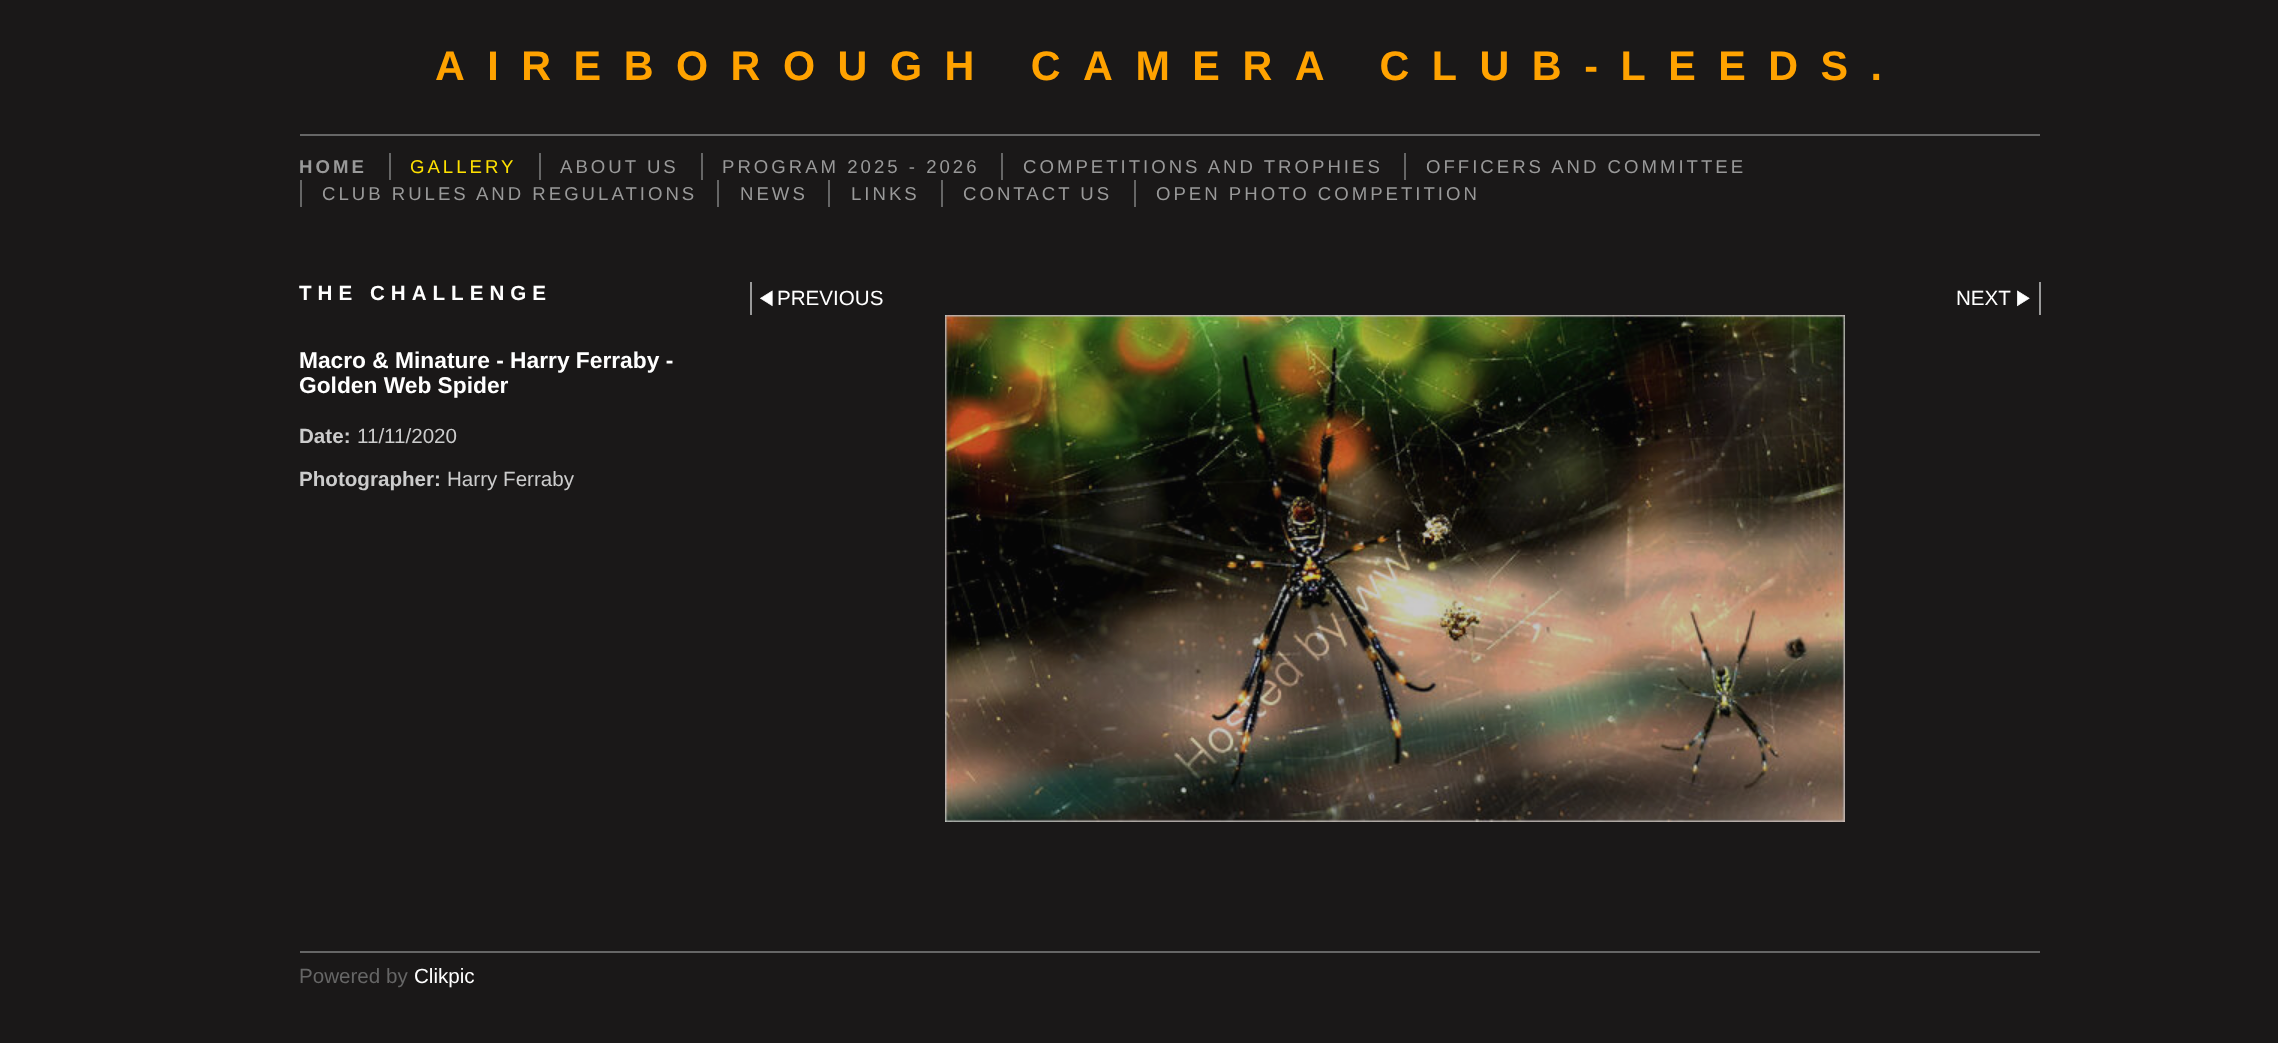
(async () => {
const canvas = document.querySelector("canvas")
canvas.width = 2278
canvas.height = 1043
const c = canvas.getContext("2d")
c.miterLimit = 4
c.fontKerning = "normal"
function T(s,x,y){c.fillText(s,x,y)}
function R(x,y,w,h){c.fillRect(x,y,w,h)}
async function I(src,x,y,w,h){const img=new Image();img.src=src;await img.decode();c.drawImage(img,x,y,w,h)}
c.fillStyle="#1a1818"
R(0,0,2278,1043)
c.fillStyle="#666"
R(300,134,1740,2)
c.letterSpacing="22.5px"
c.font="bold 41.3px Liberation Sans"
c.fillStyle="#ffa200"
T("AIREBOROUGH CAMERA CLUB-LEEDS.",435,80)
c.letterSpacing="3px"
c.font="bold 18.6px Liberation Sans"
c.fillStyle="#999"
T("HOME",299,173)
c.fillStyle="#666"
R(389,153,2,27)
c.font="18.6px Liberation Sans"
c.fillStyle="#ffe100"
T("GALLERY",410,173)
c.fillStyle="#666"
R(539,153,2,27)
c.fillStyle="#999"
T("ABOUT US",560,173)
c.fillStyle="#666"
R(701,153,2,27)
c.fillStyle="#999"
T("PROGRAM 2025 - 2026",722,173)
c.fillStyle="#666"
R(1001,153,2,27)
c.fillStyle="#999"
T("COMPETITIONS AND TROPHIES",1023,173)
c.fillStyle="#666"
R(1404,153,2,27)
c.fillStyle="#999"
T("OFFICERS AND COMMITTEE",1426,173)
c.fillStyle="#666"
R(300,180,2,27)
c.fillStyle="#999"
T("CLUB RULES AND REGULATIONS",322,200)
c.fillStyle="#666"
R(717,180,2,27)
c.fillStyle="#999"
T("NEWS",740,200)
c.fillStyle="#666"
R(828,180,2,27)
c.fillStyle="#999"
T("LINKS",851,200)
c.fillStyle="#666"
R(941,180,2,27)
c.fillStyle="#999"
T("CONTACT US",963,200)
c.fillStyle="#666"
R(1134,180,2,27)
c.fillStyle="#999"
T("OPEN PHOTO COMPETITION",1156,200)
c.letterSpacing="6px"
c.font="bold 20.6px Liberation Sans"
c.fillStyle="#fff"
T("THE CHALLENGE",299,300)
c.letterSpacing="0px"
c.font="bold 22.75px Liberation Sans"
T("Macro & Minature - Harry Ferraby -",299,368)
T("Golden Web Spider",299,393)
c.font="bold 20.6px Liberation Sans"
c.fillStyle="#ccc"
T("Date:",299,443)
c.font="20.6px Liberation Sans"
T("11/11/2020",357,443)
c.font="bold 20.6px Liberation Sans"
T("Photographer:",299,486)
c.font="20.6px Liberation Sans"
T("Harry Ferraby",447,486)
c.fillStyle="#999"
R(750,282,2,33)
await I("1.png",760,290,13,17)
c.fillStyle="#fff"
T("PREVIOUS",777,305)
c.fillStyle="#999"
R(2039,282,2,33)
c.fillStyle="#fff"
T("NEXT",1956,305)
await I("2.png",2017,290,13,17)
await I("3.png",945,315,900,507)
await I("4.png",945,315,900,507)
c.fillStyle="#666"
R(300,951,1740,2)
T("Powered by",299,983)
c.fillStyle="#fff"
T("Clikpic",414,983)
})()
